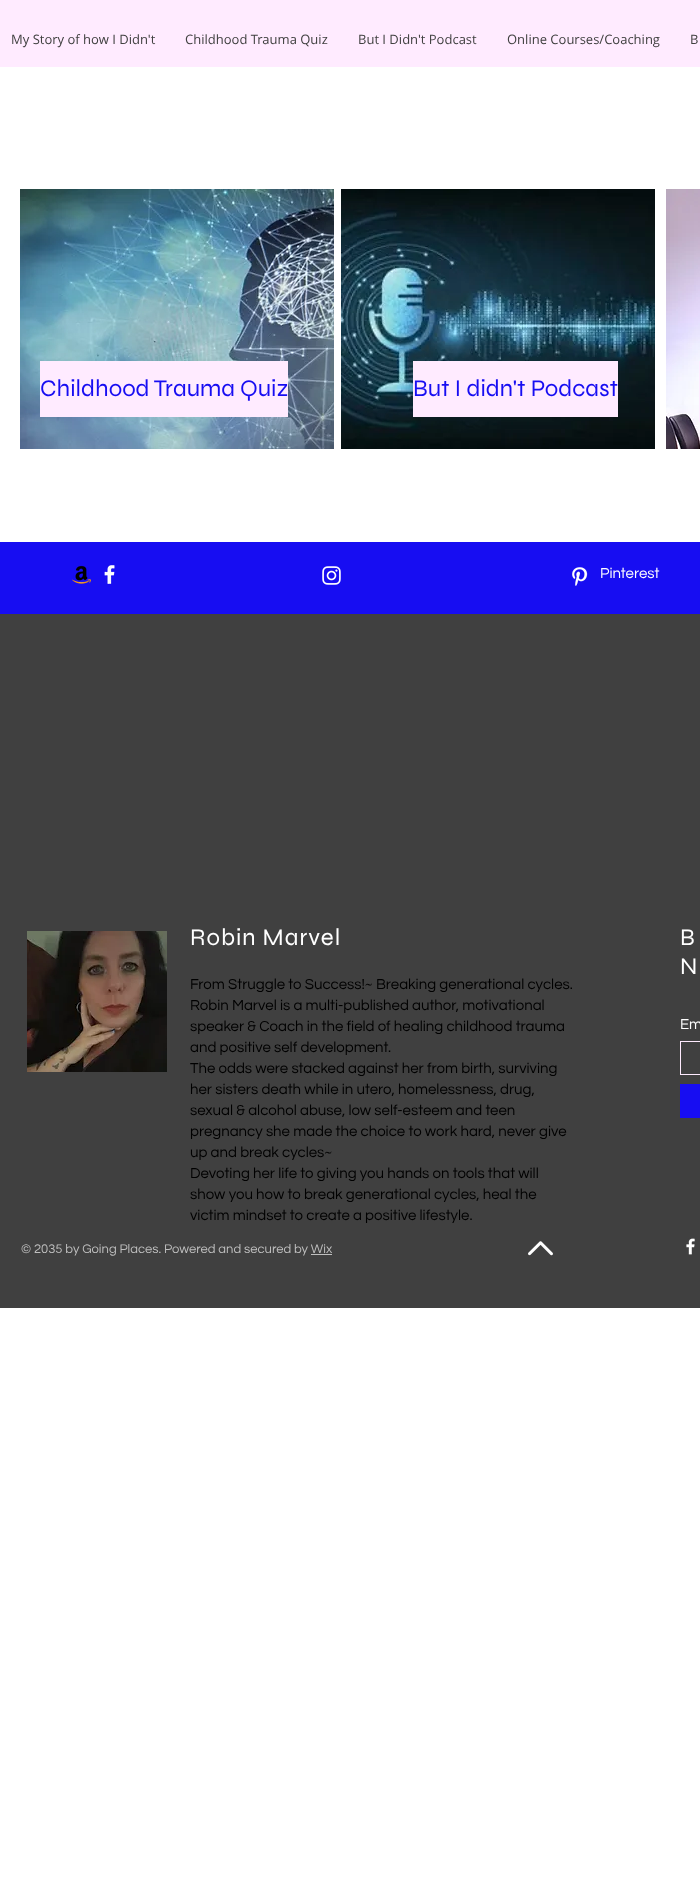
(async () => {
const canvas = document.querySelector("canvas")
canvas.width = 700
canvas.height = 1889
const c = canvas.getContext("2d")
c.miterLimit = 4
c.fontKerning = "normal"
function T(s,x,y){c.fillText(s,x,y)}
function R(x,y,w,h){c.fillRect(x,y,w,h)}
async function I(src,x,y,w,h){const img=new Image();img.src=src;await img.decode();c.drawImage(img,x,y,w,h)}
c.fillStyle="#fff"
R(0,0,700,1889)
c.fillStyle="#ffebff"
R(0,0,700,67)
c.font="13px Open Sans"
c.fillStyle="#404040"
T("My Story of how I Didn't",11,44)
T("Childhood Trauma Quiz",185,44)
T("But I Didn't Podcast",358,44)
T("Online Courses/Coaching",507,44)
T("B",690,44)
await I("1.png",20,189,314,260)
await I("2.png",341,189,314,260)
await I("3.png",666,189,34,260)
c.fillStyle="#ffebff"
R(40,361,248,56)
c.font="24px Syne"
c.fillStyle="#170df2"
T("Childhood Trauma Quiz",40,396)
c.fillStyle="#ffebff"
R(413,361,205,56)
c.fillStyle="#170df2"
T("But I didn't Podcast",413,396)
c.fillStyle="#ffebff"
R(699,361,1,61)
c.fillStyle="#170df2"
R(0,542,700,72)
await I("4.png",72,565,19,19)
await I("5.png",104,565,11,19)
await I("6.png",322,566,19,19)
await I("7.png",572,567,16,19)
c.font="15px Questrial"
c.fillStyle="#fff"
T("Pinterest",600,578)
c.fillStyle="#404040"
R(0,614,700,694)
await I("8.png",27,931,140,141)
c.letterSpacing="1px"
c.font="24px Syne"
c.fillStyle="#fff"
T("Robin Marvel",190,945)
T("B",680,945)
T("N",680,974)
c.letterSpacing="0px"
c.font="15px Questrial"
T("Em",680,1029)
c.strokeStyle="#ffebff"
c.strokeRect(680.5,1041.5,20,33)
c.fillStyle="#170df2"
R(680,1084,20,34)
c.fillStyle="#000"
T("From Struggle to Success!~ Breaking generational cycles.",190,989)
T("Robin Marvel is a multi-published author, motivational",190,1010)
T("speaker & Coach in the field of healing childhood trauma",190,1031)
T("and positive self development.",190,1052)
T("The odds were stacked against her from birth, surviving",190,1073)
T("her sisters death while in utero, homelessness, drug,",190,1094)
T("sexual & alcohol abuse, low self-esteem and teen",190,1115)
T("pregnancy she made the choice to work hard, never give",190,1136)
T("up and break cycles~",190,1157)
T("Devoting her life to giving you hands on tools that will",190,1178)
T("show you how to break generational cycles, heal the",190,1199)
T("victim mindset to create a positive lifestyle.",190,1220)
c.font="13px Questrial"
c.fillStyle="#bfbfbf"
T("© 2035 by Going Places. Powered and secured by Wix",21,1253)
R(311,1254,21,1)
await I("9.png",528,1241,25,15)
await I("10.png",686,1238,9,17)
})()
